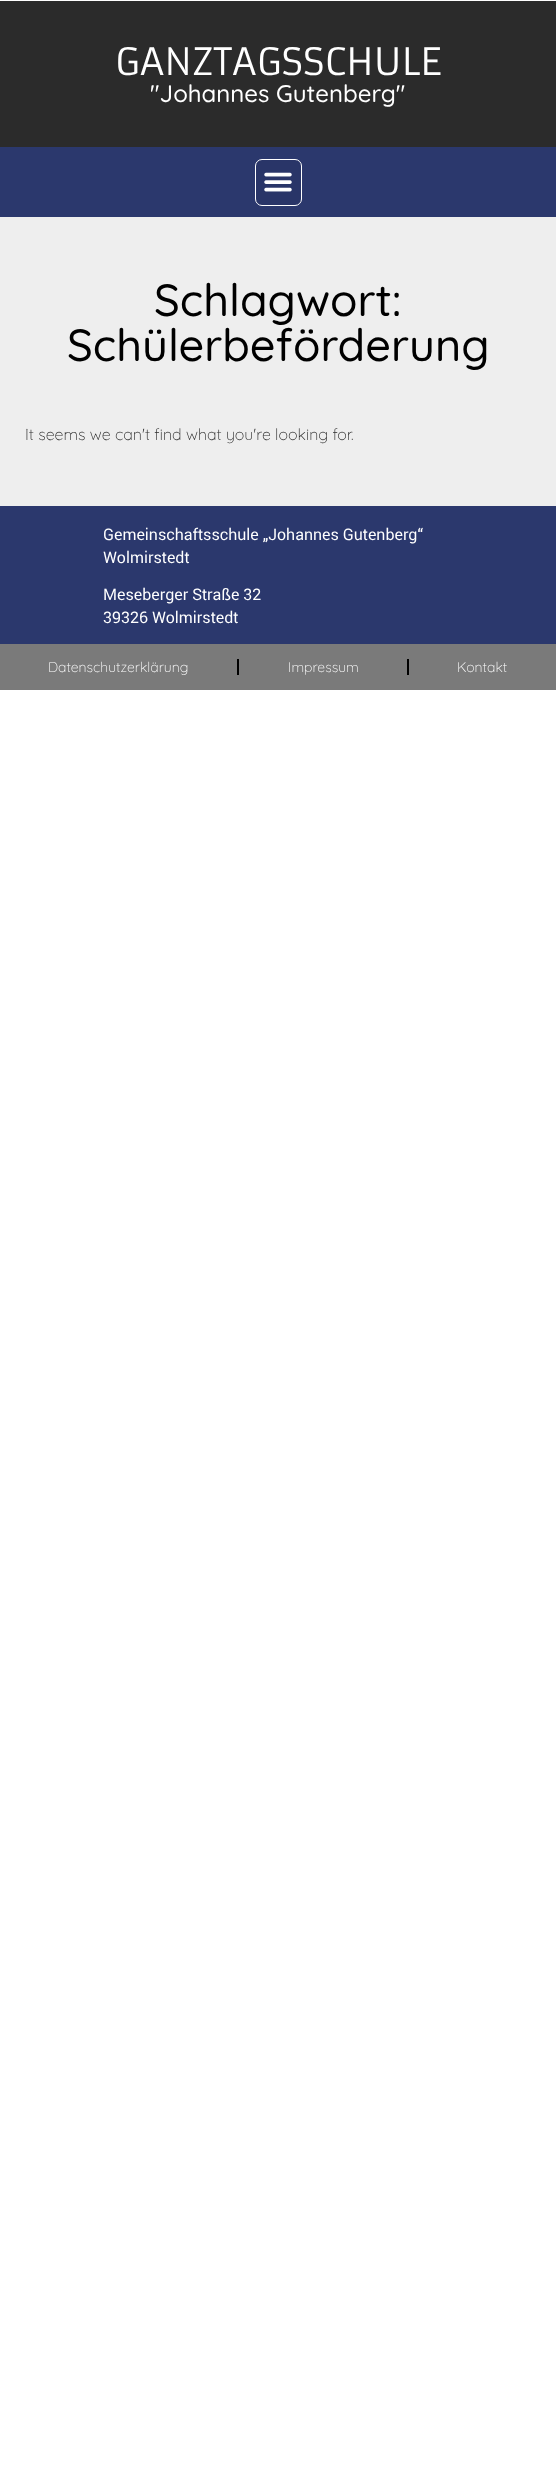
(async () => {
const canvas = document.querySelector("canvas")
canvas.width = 556
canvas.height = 2473
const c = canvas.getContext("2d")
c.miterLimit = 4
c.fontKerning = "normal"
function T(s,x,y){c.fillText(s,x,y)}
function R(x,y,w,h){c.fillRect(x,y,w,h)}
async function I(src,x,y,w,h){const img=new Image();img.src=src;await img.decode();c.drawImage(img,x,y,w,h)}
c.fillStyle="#fff"
R(0,0,556,2473)
c.fillStyle="#2b2b2b"
R(0,1,556,146)
c.font="37px Armata"
c.fillStyle="#fff"
T("GANZTAGSSCHULE",115,75)
c.font="500 24px Quicksand"
T("\"Johannes Gutenberg\"",150,102)
c.fillStyle="#2b386d"
R(0,147,556,70)
c.fillStyle="#293568"
c.beginPath()
c.roundRect(255.5,159.5,46,46,6.5)
c.fill()
c.strokeStyle="#fff"
c.stroke()
await I("1.png",264,172,28,20)
c.fillStyle="#eee"
R(0,217,556,289)
c.font="500 45px Quicksand"
c.fillStyle="#000"
T("Schlagwort:",154,316)
T("Schülerbeförderung",67,361)
c.font="300 16px Quicksand"
c.fillStyle="#2b2b2b"
T("It seems we can't find what you're looking for.",25,440)
c.fillStyle="#2b386d"
R(0,506,556,138)
c.font="16px Roboto"
c.fillStyle="#fff"
T("Gemeinschaftsschule „Johannes Gutenberg“",103,540)
T("Wolmirstedt",103,563)
T("Meseberger Straße 32",103,600)
T("39326 Wolmirstedt",103,623)
c.fillStyle="#7a7a7a"
R(0,644,556,46)
c.font="300 14px Quicksand"
c.fillStyle="#fff"
T("Datenschutzerklärung",48,672)
c.fillStyle="#000"
R(237,659,2,16)
c.fillStyle="#fff"
T("Impressum",288,672)
c.fillStyle="#000"
R(407,659,2,16)
c.fillStyle="#fff"
T("Kontakt",457,672)
})()
